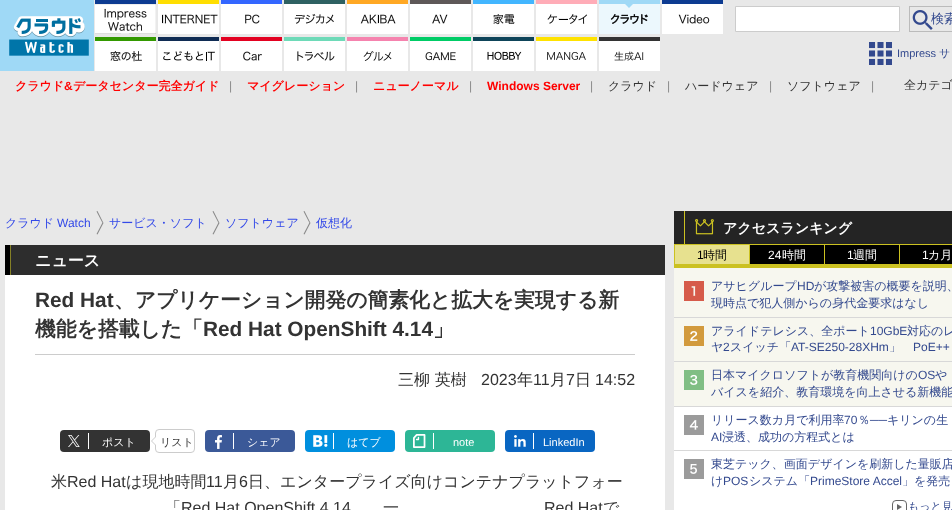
(async () => {
const canvas = document.querySelector("canvas")
canvas.width = 952
canvas.height = 510
const c = canvas.getContext("2d")
c.miterLimit = 4
c.fontKerning = "normal"
function T(s,x,y){c.fillText(s,x,y)}
function R(x,y,w,h){c.fillRect(x,y,w,h)}
function Q(x,y,w,h,r){c.beginPath();c.roundRect(x,y,w,h,r);c.fill()}
async function I(src,x,y,w,h){const img=new Image();img.src=src;await img.decode();c.drawImage(img,x,y,w,h)}
let path
c.fillStyle="#e8e8e8"
R(0,0,952,510)
c.fillStyle="#9fd9f6"
R(0,0,94,71)
await I("1.png",9,16,80,40)
c.fillStyle="#0d3b91"
R(95,0,61,4)
await I("2.png",95,4,61,30)
c.fillStyle="#ffde00"
R(158,0,61,4)
await I("3.png",158,4,61,30)
c.fillStyle="#36f"
R(221,0,61,4)
await I("4.png",221,4,61,30)
c.fillStyle="#2e6162"
R(284,0,61,4)
await I("5.png",284,4,61,30)
c.fillStyle="#ffa824"
R(347,0,61,4)
await I("6.png",347,4,61,30)
c.fillStyle="#5e5858"
R(410,0,61,4)
await I("7.png",410,4,61,30)
c.fillStyle="#42b6ff"
R(473,0,61,4)
await I("8.png",473,4,61,30)
c.fillStyle="#ffacb7"
R(536,0,61,4)
await I("9.png",536,4,61,30)
c.fillStyle="#9fd9f6"
R(599,0,61,34)
await I("10.png",599,4,61,30)
c.fillStyle="#0d3b91"
R(662,0,61,4)
await I("11.png",662,4,61,30)
c.fillStyle="#fff"
c.beginPath()
c.rect(735.5,6.5,164,25)
c.fill()
c.strokeStyle="#ccc"
c.stroke()
await I("12.png",912,10,21,20)
c.strokeStyle="#bbb"
c.strokeRect(909.5,6.5,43,25)
c.font="500 13px WenQuanYi Zen Hei"
c.fillStyle="#33498e"
T("検索",931,23)
c.fillStyle="#390"
R(95,37,61,4)
await I("13.png",95,41,61,30)
c.fillStyle="#102c54"
R(158,37,61,4)
await I("14.png",158,41,61,30)
c.fillStyle="#e30121"
R(221,37,61,4)
await I("15.png",221,41,61,30)
c.fillStyle="#6edab8"
R(284,37,61,4)
await I("16.png",284,41,61,30)
c.fillStyle="#f583ae"
R(347,37,61,4)
await I("17.png",347,41,61,30)
c.fillStyle="#0c6"
R(410,37,61,4)
await I("18.png",410,41,61,30)
c.fillStyle="#0e4459"
R(473,37,61,4)
await I("19.png",473,41,61,30)
c.fillStyle="#ffe200"
R(536,37,61,4)
await I("20.png",536,41,61,30)
c.fillStyle="#333"
R(599,37,61,4)
await I("21.png",599,41,61,30)
await I("22.png",869,42,23,23)
c.font="11px Liberation Sans"
c.fillStyle="#33498e"
T("Impress",897,57)
c.font="500 11px WenQuanYi Zen Hei"
T("サ",939,57)
c.font="bold 12px WenQuanYi Zen Hei"
c.fillStyle="#f00"
T("クラウド",15,90)
c.font="bold 12px Liberation Sans"
T("&",64,90)
c.font="bold 12px WenQuanYi Zen Hei"
T("データセンター完全ガイド",73,90)
c.font="12px Liberation Sans"
c.fillStyle="#8a8a8a"
T("|",229,90)
c.font="bold 12px WenQuanYi Zen Hei"
c.fillStyle="#f00"
T("マイグレーション",247,90)
c.font="12px Liberation Sans"
c.fillStyle="#8a8a8a"
T("|",355,90)
c.font="bold 12px WenQuanYi Zen Hei"
c.fillStyle="#f00"
T("ニューノーマル",373,90)
c.font="12px Liberation Sans"
c.fillStyle="#8a8a8a"
T("|",469,90)
c.font="bold 12px Liberation Sans"
c.fillStyle="#f00"
T("Windows Server",487,90)
c.font="12px Liberation Sans"
c.fillStyle="#8a8a8a"
T("|",590,90)
c.font="500 12px WenQuanYi Zen Hei"
c.fillStyle="#333"
T("クラウド",608,90)
c.font="12px Liberation Sans"
c.fillStyle="#8a8a8a"
T("|",667,90)
c.font="500 12px WenQuanYi Zen Hei"
c.fillStyle="#333"
T("ハードウェア",685,90)
c.font="12px Liberation Sans"
c.fillStyle="#8a8a8a"
T("|",769,90)
c.font="500 12px WenQuanYi Zen Hei"
c.fillStyle="#333"
T("ソフトウェア",787,90)
c.font="12px Liberation Sans"
c.fillStyle="#8a8a8a"
T("|",871,90)
c.font="500 12px WenQuanYi Zen Hei"
c.fillStyle="#333"
T("全カテゴ",904,89)
c.fillStyle="#8a8a8a"
path = new Path2D("M96.5 211.5l6 11.5v-.5l-6 11.5l1 .5l6-11.5l-6-12z")
c.fill(path)
c.fillStyle="#3349e8"
T("クラウド",5,227)
c.font="12px Liberation Sans"
T("Watch",57,227)
c.fillStyle="#8a8a8a"
path = new Path2D("M212.5 211.5l6 11.5v-.5l-6 11.5l1 .5l6-11.5l-6-12z")
c.fill(path)
c.font="500 12px WenQuanYi Zen Hei"
c.fillStyle="#3349e8"
T("サービス・ソフト",109,227)
c.fillStyle="#8a8a8a"
path = new Path2D("M303.5 211.5l6 11.5v-.5l-6 11.5l1 .5l6-11.5l-6-12z")
c.fill(path)
c.fillStyle="#3349e8"
T("ソフトウェア",225,227)
T("仮想化",316,227)
c.fillStyle="#fff"
R(5,275,660,235)
c.fillStyle="#2d2d2d"
R(11,245,654,30)
c.fillStyle="#000"
R(5,245,5,30)
c.fillStyle="#858026"
R(10,245,1,30)
c.font="bold 16px WenQuanYi Zen Hei"
c.fillStyle="#fff"
T("ニュース",35,266)
c.font="bold 20.8px Liberation Sans"
c.fillStyle="#333"
T("Red Hat",35,307)
c.font="bold 20.8px WenQuanYi Zen Hei"
T("、アプリケーション開発の簡素化と拡大を実現する新",114,307)
T("機能を搭載した「",35,336)
c.font="bold 20.8px Liberation Sans"
T("Red Hat OpenShift 4.14",203,336)
c.font="bold 20.8px WenQuanYi Zen Hei"
T("」",433,336)
c.fillStyle="#ccc"
R(35,354,600,1)
c.font="500 16px WenQuanYi Zen Hei"
c.fillStyle="#333"
T("三柳 英樹",398,385)
c.font="16px Liberation Sans"
T("2023",481,385)
c.font="500 16px WenQuanYi Zen Hei"
T("年",517,385)
c.font="16px Liberation Sans"
T("11",533,385)
c.font="500 16px WenQuanYi Zen Hei"
T("月",550,385)
c.font="16px Liberation Sans"
T("7",566,385)
c.font="500 16px WenQuanYi Zen Hei"
T("日",575,385)
c.font="16px Liberation Sans"
T("14:52",595,385)
Q(60,430,90,22,4)
await I("23.png",68,435,12,12)
c.fillStyle="#fff"
R(88,433,1,16)
c.font="500 11px WenQuanYi Zen Hei"
T("ポスト",102,446)
c.beginPath()
c.roundRect(155.5,429.5,39,23,3.5)
c.strokeStyle="#ccc"
c.stroke()
c.fillStyle="#ccc"
path = new Path2D("M156 436v10l-5-5z")
c.fill(path)
c.fillStyle="#fff"
path = new Path2D("M157 436v10l-5-5z")
c.fill(path)
c.fillStyle="#333"
T("リスト",160,446)
c.fillStyle="#3b5998"
Q(205,430,90,22,4)
await I("24.png",215,435,7,14)
c.fillStyle="#fff"
R(233,433,1,16)
T("シェア",247,446)
c.fillStyle="#008fde"
Q(305,430,90,22,4)
await I("25.png",313,435,15,12)
c.fillStyle="#fff"
R(333,433,1,16)
T("はてブ",347,446)
c.fillStyle="#2db696"
Q(405,430,90,22,4)
await I("26.png",413,434,13,14)
c.fillStyle="#fff"
R(433,433,1,16)
c.font="11px Liberation Sans"
T("note",453,446)
c.fillStyle="#0966c2"
Q(505,430,90,22,4)
await I("27.png",514,435,12,12)
c.fillStyle="#fff"
R(533,433,1,16)
T("LinkedIn",543,446)
c.font="500 16px WenQuanYi Zen Hei"
c.fillStyle="#333"
T("米",51,487)
c.font="16px Liberation Sans"
T("Red Hat",67,487)
c.font="500 16px WenQuanYi Zen Hei"
T("は現地時間",126,487)
c.font="16px Liberation Sans"
T("11",206,487)
c.font="500 16px WenQuanYi Zen Hei"
T("月",223,487)
c.font="16px Liberation Sans"
T("6",239,487)
c.font="500 16px WenQuanYi Zen Hei"
T("日、エンタープライズ向けコンテナプラットフォー",248,487)
T("「",165,513)
c.font="16px Liberation Sans"
T("Red Hat OpenShift 4.14",181,513)
c.font="500 16px WenQuanYi Zen Hei"
T("一",383,513)
c.font="16px Liberation Sans"
T("Red Hat",544,513)
c.font="500 16px WenQuanYi Zen Hei"
T("で",603,513)
c.fillStyle="#242424"
R(674,211,278,33)
c.fillStyle="#cbc121"
R(674,244,278,1)
R(684,211,1,34)
await I("28.png",695,219,19,16)
c.font="bold 14px WenQuanYi Zen Hei"
c.fillStyle="#fff"
T("アクセスランキング",723,233)
c.fillStyle="#e7e18f"
R(675,245,74,19)
c.fillStyle="#cbc121"
R(674,264,278,4)
R(674,245,1,23)
c.font="12px Liberation Sans"
c.fillStyle="#000"
T("1",697,259)
c.font="500 12px WenQuanYi Zen Hei"
T("時間",703,259)
R(750,245,74,19)
c.fillStyle="#cbc121"
R(749,245,1,23)
c.font="12px Liberation Sans"
c.fillStyle="#fff"
T("24",768,259)
c.font="500 12px WenQuanYi Zen Hei"
T("時間",782,259)
c.fillStyle="#000"
R(825,245,74,19)
c.fillStyle="#cbc121"
R(824,245,1,23)
c.font="12px Liberation Sans"
c.fillStyle="#fff"
T("1",847,259)
c.font="500 12px WenQuanYi Zen Hei"
T("週間",853,259)
c.fillStyle="#000"
R(900,245,52,19)
c.fillStyle="#cbc121"
R(899,245,1,23)
c.font="12px Liberation Sans"
c.fillStyle="#fff"
T("1",922,259)
c.font="500 12px WenQuanYi Zen Hei"
T("カ月",928,259)
c.fillStyle="#f7f7ef"
R(674,268,278,49)
c.fillStyle="#d8d8d8"
R(674,317,278,1)
await I("29.png",684,281,20,20)
c.fillStyle="#33498e"
T("アサヒグループ",711,290)
c.font="12px Liberation Sans"
T("HD",797,290)
c.font="500 12px WenQuanYi Zen Hei"
T("が攻撃被害の概要を説明、",814,290)
T("現時点で犯人側からの身代金要求はなし",711,307)
c.fillStyle="#f7f7ef"
R(674,318,278,43)
c.fillStyle="#d8d8d8"
R(674,361,278,1)
await I("30.png",684,326,20,20)
c.fillStyle="#33498e"
T("アライドテレシス、全ポート",711,335)
c.font="12px Liberation Sans"
T("10GbE",870,335)
c.font="500 12px WenQuanYi Zen Hei"
T("対応のレ",907,335)
T("ヤ",711,351)
c.font="12px Liberation Sans"
T("2",723,351)
c.font="500 12px WenQuanYi Zen Hei"
T("スイッチ「",730,351)
c.font="12px Liberation Sans"
T("AT-SE250-28XHm",791,351)
c.font="500 12px WenQuanYi Zen Hei"
T("」",889,351)
c.font="12px Liberation Sans"
T("PoE++",913,351)
c.fillStyle="#f7f7ef"
R(674,362,278,44)
c.fillStyle="#d8d8d8"
R(674,406,278,1)
await I("31.png",684,370,20,20)
c.font="500 12px WenQuanYi Zen Hei"
c.fillStyle="#33498e"
T("日本マイクロソフトが教育機関向けの",711,379)
c.font="12px Liberation Sans"
T("OS",918,379)
c.font="500 12px WenQuanYi Zen Hei"
T("や",935,379)
T("バイスを紹介、教育環境を向上させる新機能",711,396)
c.fillStyle="#fff"
R(674,407,278,103)
c.fillStyle="#d8d8d8"
R(674,450,278,1)
await I("32.png",684,415,20,20)
c.fillStyle="#33498e"
T("リリース数カ月で利用率",711,424)
c.font="12px Liberation Sans"
T("70",844,424)
c.font="500 12px WenQuanYi Zen Hei"
T("％",858,424)
c.font="12px Liberation Sans"
T("──",870,424)
c.font="500 12px WenQuanYi Zen Hei"
T("キリンの生",887,424)
c.font="12px Liberation Sans"
T("AI",711,441)
c.font="500 12px WenQuanYi Zen Hei"
T("浸透、成功の方程式とは",722,441)
await I("33.png",684,459,20,20)
T("東芝テック、画面デザインを刷新した量販店",711,468)
T("け",711,485)
c.font="12px Liberation Sans"
T("POS",723,485)
c.font="500 12px WenQuanYi Zen Hei"
T("システム「",749,485)
c.font="12px Liberation Sans"
T("PrimeStore Accel",810,485)
c.font="500 12px WenQuanYi Zen Hei"
T("」を発売",902,485)
c.beginPath()
c.roundRect(892.5,500.5,14,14,3.5)
c.strokeStyle="#666"
c.stroke()
c.font="500 11px WenQuanYi Zen Hei"
T("もっと見",908,510)
c.fillStyle="#666"
path = new Path2D("M897 510v-6l5 3z")
c.fill(path)
})()
